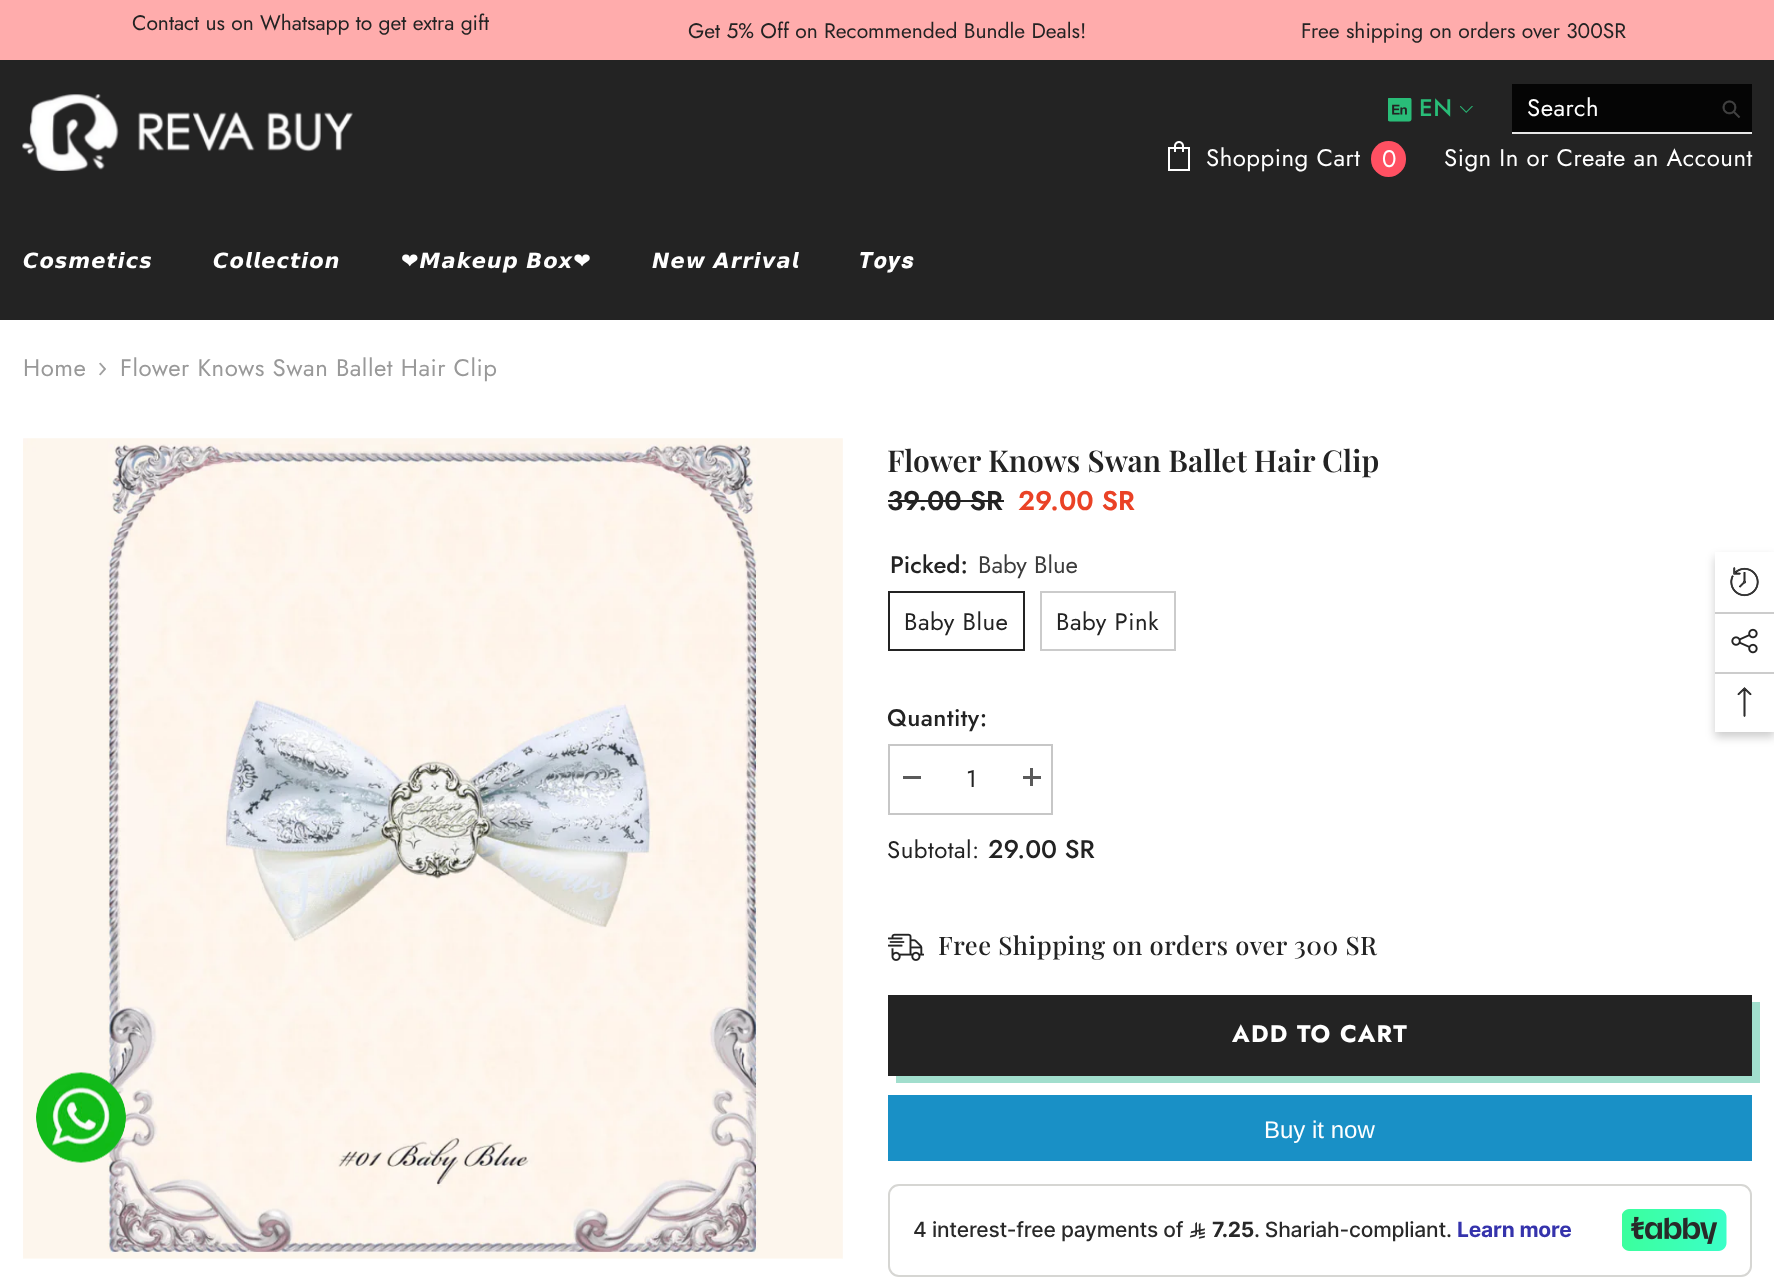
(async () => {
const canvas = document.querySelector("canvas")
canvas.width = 1774
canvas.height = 1282
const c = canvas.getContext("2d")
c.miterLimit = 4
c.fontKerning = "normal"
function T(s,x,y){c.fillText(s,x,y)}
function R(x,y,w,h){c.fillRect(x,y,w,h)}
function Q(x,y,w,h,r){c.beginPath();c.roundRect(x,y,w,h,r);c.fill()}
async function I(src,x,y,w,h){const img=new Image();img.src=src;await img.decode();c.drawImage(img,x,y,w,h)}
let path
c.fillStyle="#fff"
R(0,0,1774,1282)
c.fillStyle="#ffacac"
R(0,0,1774,60)
c.font="21px Jost"
c.fillStyle="#232323"
T("Contact us on Whatsapp to get extra gift",132,30)
T("Get 5% Off on Recommended Bundle Deals!",688,38)
T("Free shipping on orders over 300SR",1301,38)
R(0,60,1774,260)
await I("1.png",22,94,331,77)
await I("2.png",1388,98,24,24)
c.letterSpacing="0.5px"
c.font="500 24px Jost"
c.fillStyle="#29bd78"
T("EN",1419,116)
await I("3.png",1460,106,13,7)
c.fillStyle="#050505"
R(1512,84,240,48)
c.fillStyle="#e7e7e7"
R(1512,132,240,2)
c.font="24px Jost"
c.fillStyle="#fff"
T("Search",1527,116)
await I("4.png",1722,100,19,18)
await I("5.png",1168,141,22,30)
T("Shopping Cart",1206,166)
c.fillStyle="#ff5062"
Q(1371,141,35,36,17.5)
c.letterSpacing="0px"
c.fillStyle="#fff"
T("0",1382,167)
c.letterSpacing="0.5px"
T("Sign In or Create an Account",1444,166)
c.letterSpacing="1px"
c.font="italic bold 21px DejaVu Sans"
T("𝘾𝙤𝙨𝙢𝙚𝙩𝙞𝙘𝙨",23,268)
T("𝘾𝙤𝙡𝙡𝙚𝙘𝙩𝙞𝙤𝙣",213,268)
c.wordSpacing="-1px"
T("❤𝙈𝙖𝙠𝙚𝙪𝙥 𝘽𝙤𝙭❤",401,268)
T("𝙉𝙚𝙬 𝘼𝙧𝙧𝙞𝙫𝙖𝙡",652,268)
c.wordSpacing="0px"
c.font="bold 21px FreeSans"
T("𝑻𝒐𝒚𝒔",860,268)
c.letterSpacing="0.5px"
c.font="24px Jost"
c.fillStyle="#999"
T("Home",23,376)
await I("6.png",99,362,7,14)
T("Flower Knows Swan Ballet Hair Clip",120,376)
await I("7.png",23,438,820,821)
c.letterSpacing="0px"
c.font="600 30px Playfair Display"
c.fillStyle="#232323"
T("Flower Knows Swan Ballet Hair Clip",887,472)
c.font="600 27px Jost"
T("39.00 SR",887,510)
R(888,500,116,2)
c.fillStyle="#ea4226"
T("29.00 SR",1018,510)
c.font="500 24px Jost"
c.fillStyle="#232323"
T("Picked:",890,573)
c.font="24px Jost"
c.fillStyle="#3c3c3c"
T("Baby Blue",978,573)
c.strokeStyle="#232323"
c.lineWidth=2
c.strokeRect(889,592,135,58)
c.letterSpacing="0.5px"
c.fillStyle="#232323"
T("Baby Blue",904,630)
c.strokeStyle="#cbcbcb"
c.strokeRect(1041,592,134,58)
T("Baby Pink",1056,630)
c.font="500 24px Jost"
T("Quantity:",887,726)
c.strokeStyle="#c7c7c7"
c.strokeRect(889,745,163,69)
c.fillStyle="#5a5a5a"
R(903,776,18,3)
c.font="24px Jost"
c.fillStyle="#232323"
T("1",966,787)
c.fillStyle="#5a5a5a"
R(1023,776,18,3)
R(1030,768,3,18)
c.fillStyle="#232323"
T("Subtotal:",887,858)
c.letterSpacing="0px"
c.font="500 25.5px Jost"
T("29.00 SR",988,858)
await I("8.png",888,933,36,28)
c.letterSpacing="0.5px"
c.font="500 25.5px Playfair Display"
T("Free Shipping on orders over 300 SR",938,955)
c.fillStyle="#a1decd"
path = new Path2D("M896 1076v7h864v-81h-8v74z")
c.fill(path)
c.fillStyle="#232323"
R(888,995,864,81)
c.letterSpacing="1.25px"
c.font="bold 24px Jost"
c.fillStyle="#fff"
T("ADD TO CART",1232,1042)
c.fillStyle="#1990c6"
R(888,1095,864,66)
c.letterSpacing="0px"
c.font="24px Liberation Sans"
c.fillStyle="#fff"
T("Buy it now",1264,1138)
c.beginPath()
c.roundRect(889,1185,862,91,10)
c.strokeStyle="#d6d6d3"
c.stroke()
c.letterSpacing="-0.2px"
c.font="500 21px Inter"
c.fillStyle="#292929"
T("4 interest-free payments of",913,1237)
await I("9.png",1189,1222,16,17)
c.font="bold 21px Inter"
T("7.25",1212,1237)
c.font="500 21px Inter"
T(". Shariah-compliant.",1254,1237)
c.font="bold 21px Inter"
c.fillStyle="#3533ac"
T("Learn more",1457,1237)
await I("10.png",1622,1209,105,42)
c.save()
path = new Path2D("M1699 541h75v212h-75zm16 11h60v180h-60z")
c.clip(path,"evenodd")
c.fillStyle="#00000033"
c.filter="blur(5px)"
c.beginPath()
c.rect(1715,557,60,180)
c.fill()
c.filter="none"
c.restore()
await I("11.png",1730,567,29,30)
c.fillStyle="#ccc"
R(1715,612,59,2)
await I("12.png",1731,628,27,26)
R(1715,672,59,2)
await I("13.png",1737,687,15,30)
await I("14.png",36,1072,90,91)
})()
